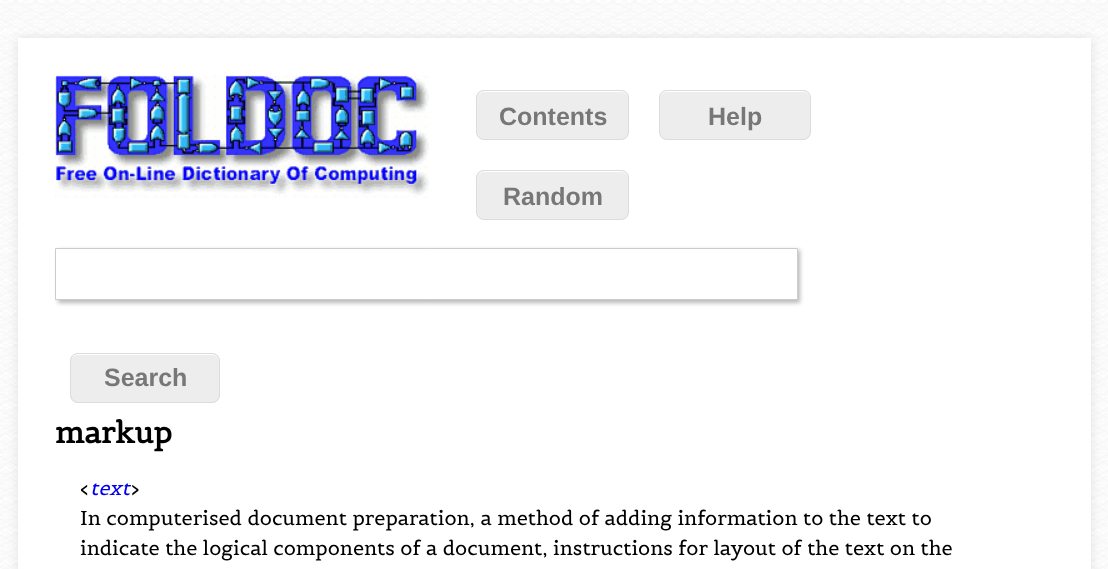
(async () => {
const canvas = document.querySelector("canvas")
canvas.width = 1108
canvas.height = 569
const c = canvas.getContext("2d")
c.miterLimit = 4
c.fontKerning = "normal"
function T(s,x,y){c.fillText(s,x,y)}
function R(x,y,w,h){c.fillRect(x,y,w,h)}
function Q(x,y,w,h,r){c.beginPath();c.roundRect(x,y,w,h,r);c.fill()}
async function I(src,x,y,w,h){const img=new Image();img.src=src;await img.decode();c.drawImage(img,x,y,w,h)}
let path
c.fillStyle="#fff"
R(0,0,1108,569)
await I("1.png",0,0,1108,569)
c.fillStyle="#0000001a"
c.filter="blur(5.5px)"
c.beginPath()
c.rect(18,38,1073,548)
c.fill()
c.filter="none"
c.fillStyle="#fff"
R(18,38,1073,531)
await I("2.png",55,75,374,123)
c.fillStyle="#ededed"
Q(476,90,153,50,8)
c.fillStyle="#fff"
path = new Path2D("M484 92h137c4 0 7 3 7 7v-2c0-3-3-6-6-6h-138c-3 0-6 3-6 6v2c0-4 2-7 6-7z")
c.fill(path)
c.beginPath()
c.roundRect(476.5,90.5,152,49,7.5)
c.strokeStyle="#dcdcdc"
c.stroke()
c.font="bold 25px Liberation Sans"
c.fillStyle="#777"
T("Contents",499,125)
c.fillStyle="#ededed"
Q(659,90,152,50,8)
c.fillStyle="#fff"
path = new Path2D("M666 92h138c3 0 6 3 6 7v-2c0-3-3-6-6-6h-138c-3 0-6 3-6 6v2c0-4 3-7 6-7z")
c.fill(path)
c.beginPath()
c.roundRect(659.5,90.5,151,49,7.5)
c.stroke()
c.fillStyle="#777"
T("Help",708,125)
c.fillStyle="#ededed"
Q(476,170,153,50,8)
c.fillStyle="#fff"
path = new Path2D("M484 172h137c4 0 7 3 7 7v-2c0-3-3-6-6-6h-138c-3 0-6 3-6 6v2c0-4 2-7 6-7z")
c.fill(path)
c.beginPath()
c.roundRect(476.5,170.5,152,49,7.5)
c.stroke()
c.fillStyle="#777"
T("Random",503,205)
c.fillStyle="#32323257"
c.filter="blur(2px)"
c.beginPath()
c.rect(58,250,742,53)
c.fill()
c.filter="none"
c.fillStyle="#fff"
c.beginPath()
c.rect(55.5,248.5,742,51)
c.fill()
c.strokeStyle="#ccc"
c.stroke()
c.fillStyle="#ededed"
Q(70,353,150,50,8)
c.fillStyle="#fff"
path = new Path2D("M78 355h134c4 0 7 3 7 6v-1c0-3-3-6-6-6h-136c-3 0-6 3-6 6v1c0-3 3-6 7-6z")
c.fill(path)
c.beginPath()
c.roundRect(70.5,353.5,149,49,7.5)
c.strokeStyle="#dcdcdc"
c.stroke()
c.fillStyle="#777"
T("Search",104,386)
c.font="bold 30px Belgrano"
c.fillStyle="#000"
T("markup",55,443)
c.font="20px Belgrano"
T("<",80,495)
c.font="italic 20px Belgrano"
c.fillStyle="#00e"
T("text",90,495)
c.font="20px Belgrano"
c.fillStyle="#000"
T(">",131,495)
T("In computerised document preparation, a method of adding information to the text to",80,525)
T("indicate the logical components of a document, instructions for layout of the text on the",80,555)
})()
